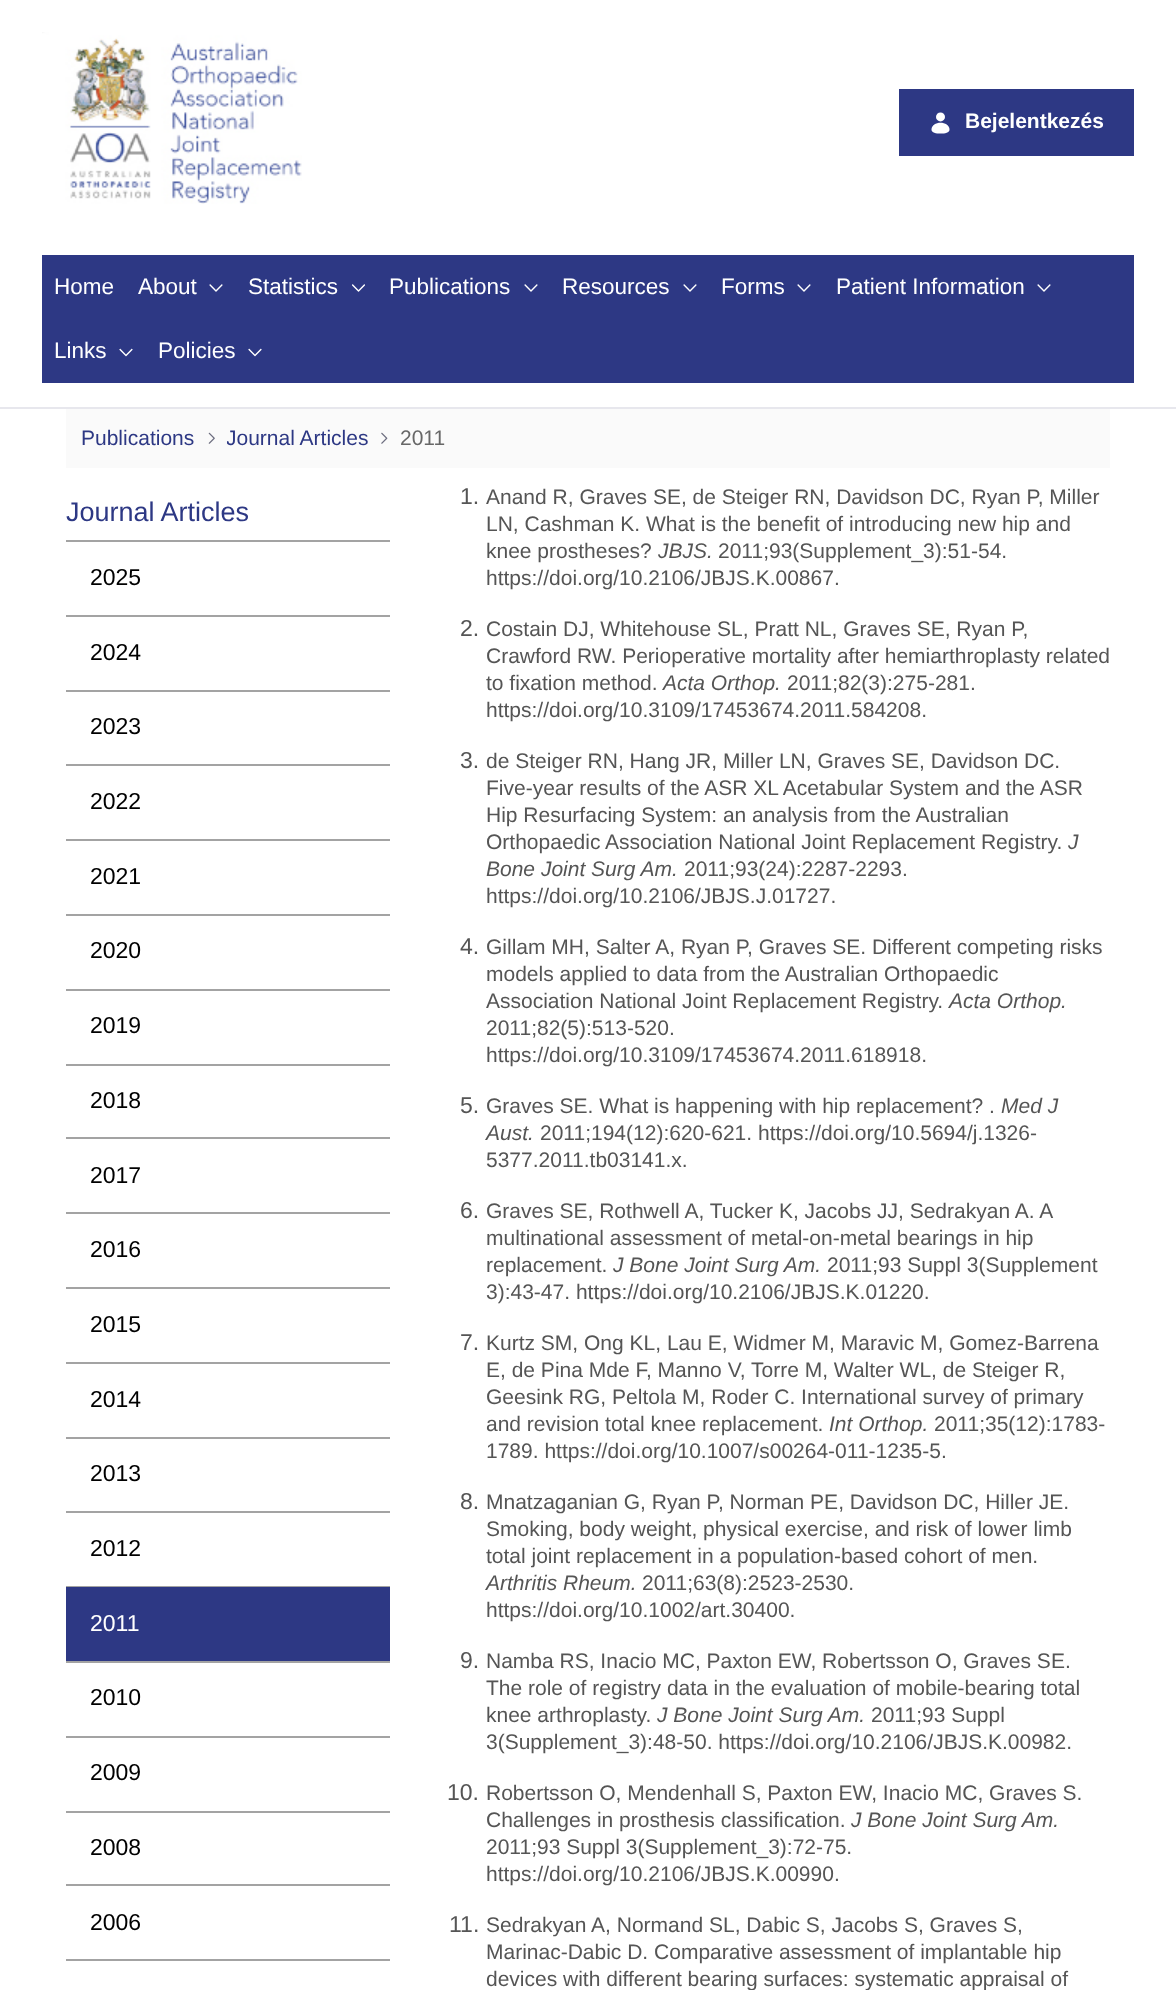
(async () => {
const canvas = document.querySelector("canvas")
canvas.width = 1176
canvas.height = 1990
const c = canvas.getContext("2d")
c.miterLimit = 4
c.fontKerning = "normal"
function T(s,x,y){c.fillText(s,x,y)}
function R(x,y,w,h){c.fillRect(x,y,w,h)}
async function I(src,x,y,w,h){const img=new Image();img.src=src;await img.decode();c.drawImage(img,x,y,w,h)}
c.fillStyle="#fff"
R(0,0,1176,1990)
await I("1.png",42,32,260,172)
c.fillStyle="#2d3884"
R(899,89,235,67)
await I("2.png",931,112,19,22)
c.font="bold 21px Liberation Sans"
c.fillStyle="#fff"
T("Bejelentkezés",965,128)
c.fillStyle="#e7e7ed"
R(0,407,1176,2)
c.fillStyle="#2d3884"
R(42,255,1092,128)
c.font="22.5px Liberation Sans"
c.fillStyle="#fff"
T("Home",54,294)
T("About",138,294)
await I("3.png",209,284,14,8)
T("Statistics",248,294)
await I("4.png",352,284,13,8)
T("Publications",389,294)
await I("3.png",524,284,14,8)
T("Resources",562,294)
await I("3.png",683,284,14,8)
T("Forms",721,294)
await I("3.png",797,284,14,8)
T("Patient Information",836,294)
await I("3.png",1037,284,14,8)
T("Links",54,358)
await I("5.png",119,348,14,9)
T("Policies",158,358)
await I("6.png",248,348,14,9)
c.fillStyle="#fafafa"
R(66,409,1044,59)
c.font="21px Liberation Sans"
c.fillStyle="#2d3884"
T("Publications",81,445)
await I("7.png",208,432,7,12)
c.save()
c.beginPath()
c.rect(227,423,141,32)
c.clip()
T("Journal Articles",226,445)
c.restore()
await I("8.png",381,432,7,12)
c.fillStyle="#676767"
T("2011",400,445)
c.font="27px Liberation Sans"
c.fillStyle="#2d3884"
T("Journal Articles",66,521)
c.fillStyle="#a3a3a3"
R(66,540,324,2)
R(66,615,324,2)
c.font="23px Liberation Sans"
c.fillStyle="#000"
T("2025",90,585)
c.fillStyle="#a3a3a3"
R(66,690,324,2)
c.fillStyle="#000"
T("2024",90,660)
c.fillStyle="#a3a3a3"
R(66,764,324,2)
c.fillStyle="#000"
T("2023",90,734)
c.fillStyle="#a3a3a3"
R(66,839,324,2)
c.fillStyle="#000"
T("2022",90,809)
c.fillStyle="#a3a3a3"
R(66,914,324,2)
c.fillStyle="#000"
T("2021",90,884)
c.fillStyle="#a3a3a3"
R(66,989,324,2)
c.fillStyle="#000"
T("2020",90,958)
c.fillStyle="#a3a3a3"
R(66,1064,324,2)
c.fillStyle="#000"
T("2019",90,1033)
c.fillStyle="#a3a3a3"
R(66,1137,324,2)
c.fillStyle="#000"
T("2018",90,1108)
c.fillStyle="#a3a3a3"
R(66,1212,324,2)
c.fillStyle="#000"
T("2017",90,1183)
c.fillStyle="#a3a3a3"
R(66,1287,324,2)
c.fillStyle="#000"
T("2016",90,1257)
c.fillStyle="#a3a3a3"
R(66,1362,324,2)
c.fillStyle="#000"
T("2015",90,1332)
c.fillStyle="#a3a3a3"
R(66,1437,324,2)
c.fillStyle="#000"
T("2014",90,1407)
c.fillStyle="#a3a3a3"
R(66,1511,324,2)
c.fillStyle="#000"
T("2013",90,1481)
c.fillStyle="#a3a3a3"
R(66,1586,324,1)
c.fillStyle="#000"
T("2012",90,1556)
c.fillStyle="#a3a3a3"
R(66,1661,324,2)
c.fillStyle="#2d3884"
R(66,1587,324,74)
c.fillStyle="#fff"
T("2011",90,1631)
c.fillStyle="#a3a3a3"
R(66,1736,324,2)
c.fillStyle="#000"
T("2010",90,1705)
c.fillStyle="#a3a3a3"
R(66,1811,324,2)
c.fillStyle="#000"
T("2009",90,1780)
c.fillStyle="#a3a3a3"
R(66,1884,324,2)
c.fillStyle="#000"
T("2008",90,1855)
c.fillStyle="#a3a3a3"
R(66,1959,324,2)
c.fillStyle="#000"
T("2006",90,1930)
c.fillStyle="#555"
T("1.",460,504)
c.font="21px Liberation Sans"
T("Anand R, Graves SE, de Steiger RN, Davidson DC, Ryan P, Miller",486,504)
T("LN, Cashman K. What is the benefit of introducing new hip and",486,531)
T("knee prostheses?",486,558)
c.font="italic 21px Liberation Sans"
T("JBJS.",658,558)
c.font="21px Liberation Sans"
T("2011;93(Supplement_3):51-54.",718,558)
T("https://doi.org/10.2106/JBJS.K.00867.",486,585)
c.font="23px Liberation Sans"
T("2.",460,636)
c.font="21px Liberation Sans"
T("Costain DJ, Whitehouse SL, Pratt NL, Graves SE, Ryan P,",486,636)
T("Crawford RW. Perioperative mortality after hemiarthroplasty related",486,663)
T("to fixation method.",486,690)
c.font="italic 21px Liberation Sans"
T("Acta Orthop.",663,690)
c.font="21px Liberation Sans"
T("2011;82(3):275-281.",787,690)
T("https://doi.org/10.3109/17453674.2011.584208.",486,717)
c.font="23px Liberation Sans"
T("3.",460,768)
c.font="21px Liberation Sans"
T("de Steiger RN, Hang JR, Miller LN, Graves SE, Davidson DC.",486,768)
T("Five-year results of the ASR XL Acetabular System and the ASR",486,795)
T("Hip Resurfacing System: an analysis from the Australian",486,822)
T("Orthopaedic Association National Joint Replacement Registry.",486,849)
c.font="italic 21px Liberation Sans"
T("J",1068,849)
T("Bone Joint Surg Am.",486,876)
c.font="21px Liberation Sans"
T("2011;93(24):2287-2293.",684,876)
T("https://doi.org/10.2106/JBJS.J.01727.",486,903)
c.font="23px Liberation Sans"
T("4.",460,954)
c.font="21px Liberation Sans"
T("Gillam MH, Salter A, Ryan P, Graves SE. Different competing risks",486,954)
T("models applied to data from the Australian Orthopaedic",486,981)
T("Association National Joint Replacement Registry.",486,1008)
c.font="italic 21px Liberation Sans"
T("Acta Orthop.",949,1008)
c.font="21px Liberation Sans"
T("2011;82(5):513-520.",486,1035)
T("https://doi.org/10.3109/17453674.2011.618918.",486,1062)
c.font="23px Liberation Sans"
T("5.",460,1113)
c.font="21px Liberation Sans"
T("Graves SE. What is happening with hip replacement? .",486,1113)
c.font="italic 21px Liberation Sans"
T("Med J",1001,1113)
T("Aust.",486,1140)
c.font="21px Liberation Sans"
T("2011;194(12):620-621. https://doi.org/10.5694/j.1326-",540,1140)
T("5377.2011.tb03141.x.",486,1167)
c.font="23px Liberation Sans"
T("6.",460,1218)
c.font="21px Liberation Sans"
T("Graves SE, Rothwell A, Tucker K, Jacobs JJ, Sedrakyan A. A",486,1218)
T("multinational assessment of metal-on-metal bearings in hip",486,1245)
T("replacement.",486,1272)
c.font="italic 21px Liberation Sans"
T("J Bone Joint Surg Am.",613,1272)
c.font="21px Liberation Sans"
T("2011;93 Suppl 3(Supplement",827,1272)
T("3):43-47. https://doi.org/10.2106/JBJS.K.01220.",486,1299)
c.font="23px Liberation Sans"
T("7.",460,1350)
c.font="21px Liberation Sans"
T("Kurtz SM, Ong KL, Lau E, Widmer M, Maravic M, Gomez-Barrena",486,1350)
T("E, de Pina Mde F, Manno V, Torre M, Walter WL, de Steiger R,",486,1377)
T("Geesink RG, Peltola M, Roder C. International survey of primary",486,1404)
T("and revision total knee replacement.",486,1431)
c.font="italic 21px Liberation Sans"
T("Int Orthop.",829,1431)
c.font="21px Liberation Sans"
T("2011;35(12):1783-",934,1431)
T("1789. https://doi.org/10.1007/s00264-011-1235-5.",486,1458)
c.font="23px Liberation Sans"
T("8.",460,1509)
c.font="21px Liberation Sans"
T("Mnatzaganian G, Ryan P, Norman PE, Davidson DC, Hiller JE.",486,1509)
T("Smoking, body weight, physical exercise, and risk of lower limb",486,1536)
T("total joint replacement in a population-based cohort of men.",486,1563)
c.font="italic 21px Liberation Sans"
T("Arthritis Rheum.",486,1590)
c.font="21px Liberation Sans"
T("2011;63(8):2523-2530.",642,1590)
T("https://doi.org/10.1002/art.30400.",486,1617)
c.font="23px Liberation Sans"
T("9.",460,1668)
c.font="21px Liberation Sans"
T("Namba RS, Inacio MC, Paxton EW, Robertsson O, Graves SE.",486,1668)
T("The role of registry data in the evaluation of mobile-bearing total",486,1695)
T("knee arthroplasty.",486,1722)
c.font="italic 21px Liberation Sans"
T("J Bone Joint Surg Am.",657,1722)
c.font="21px Liberation Sans"
T("2011;93 Suppl",871,1722)
T("3(Supplement_3):48-50. https://doi.org/10.2106/JBJS.K.00982.",486,1749)
c.font="23px Liberation Sans"
T("10.",447,1800)
c.font="21px Liberation Sans"
T("Robertsson O, Mendenhall S, Paxton EW, Inacio MC, Graves S.",486,1800)
T("Challenges in prosthesis classification.",486,1827)
c.font="italic 21px Liberation Sans"
T("J Bone Joint Surg Am.",851,1827)
c.font="21px Liberation Sans"
T("2011;93 Suppl 3(Supplement_3):72-75.",486,1854)
T("https://doi.org/10.2106/JBJS.K.00990.",486,1881)
c.font="23px Liberation Sans"
T("11.",449,1932)
c.font="21px Liberation Sans"
T("Sedrakyan A, Normand SL, Dabic S, Jacobs S, Graves S,",486,1932)
T("Marinac-Dabic D. Comparative assessment of implantable hip",486,1959)
T("devices with different bearing surfaces: systematic appraisal of",486,1986)
})()
